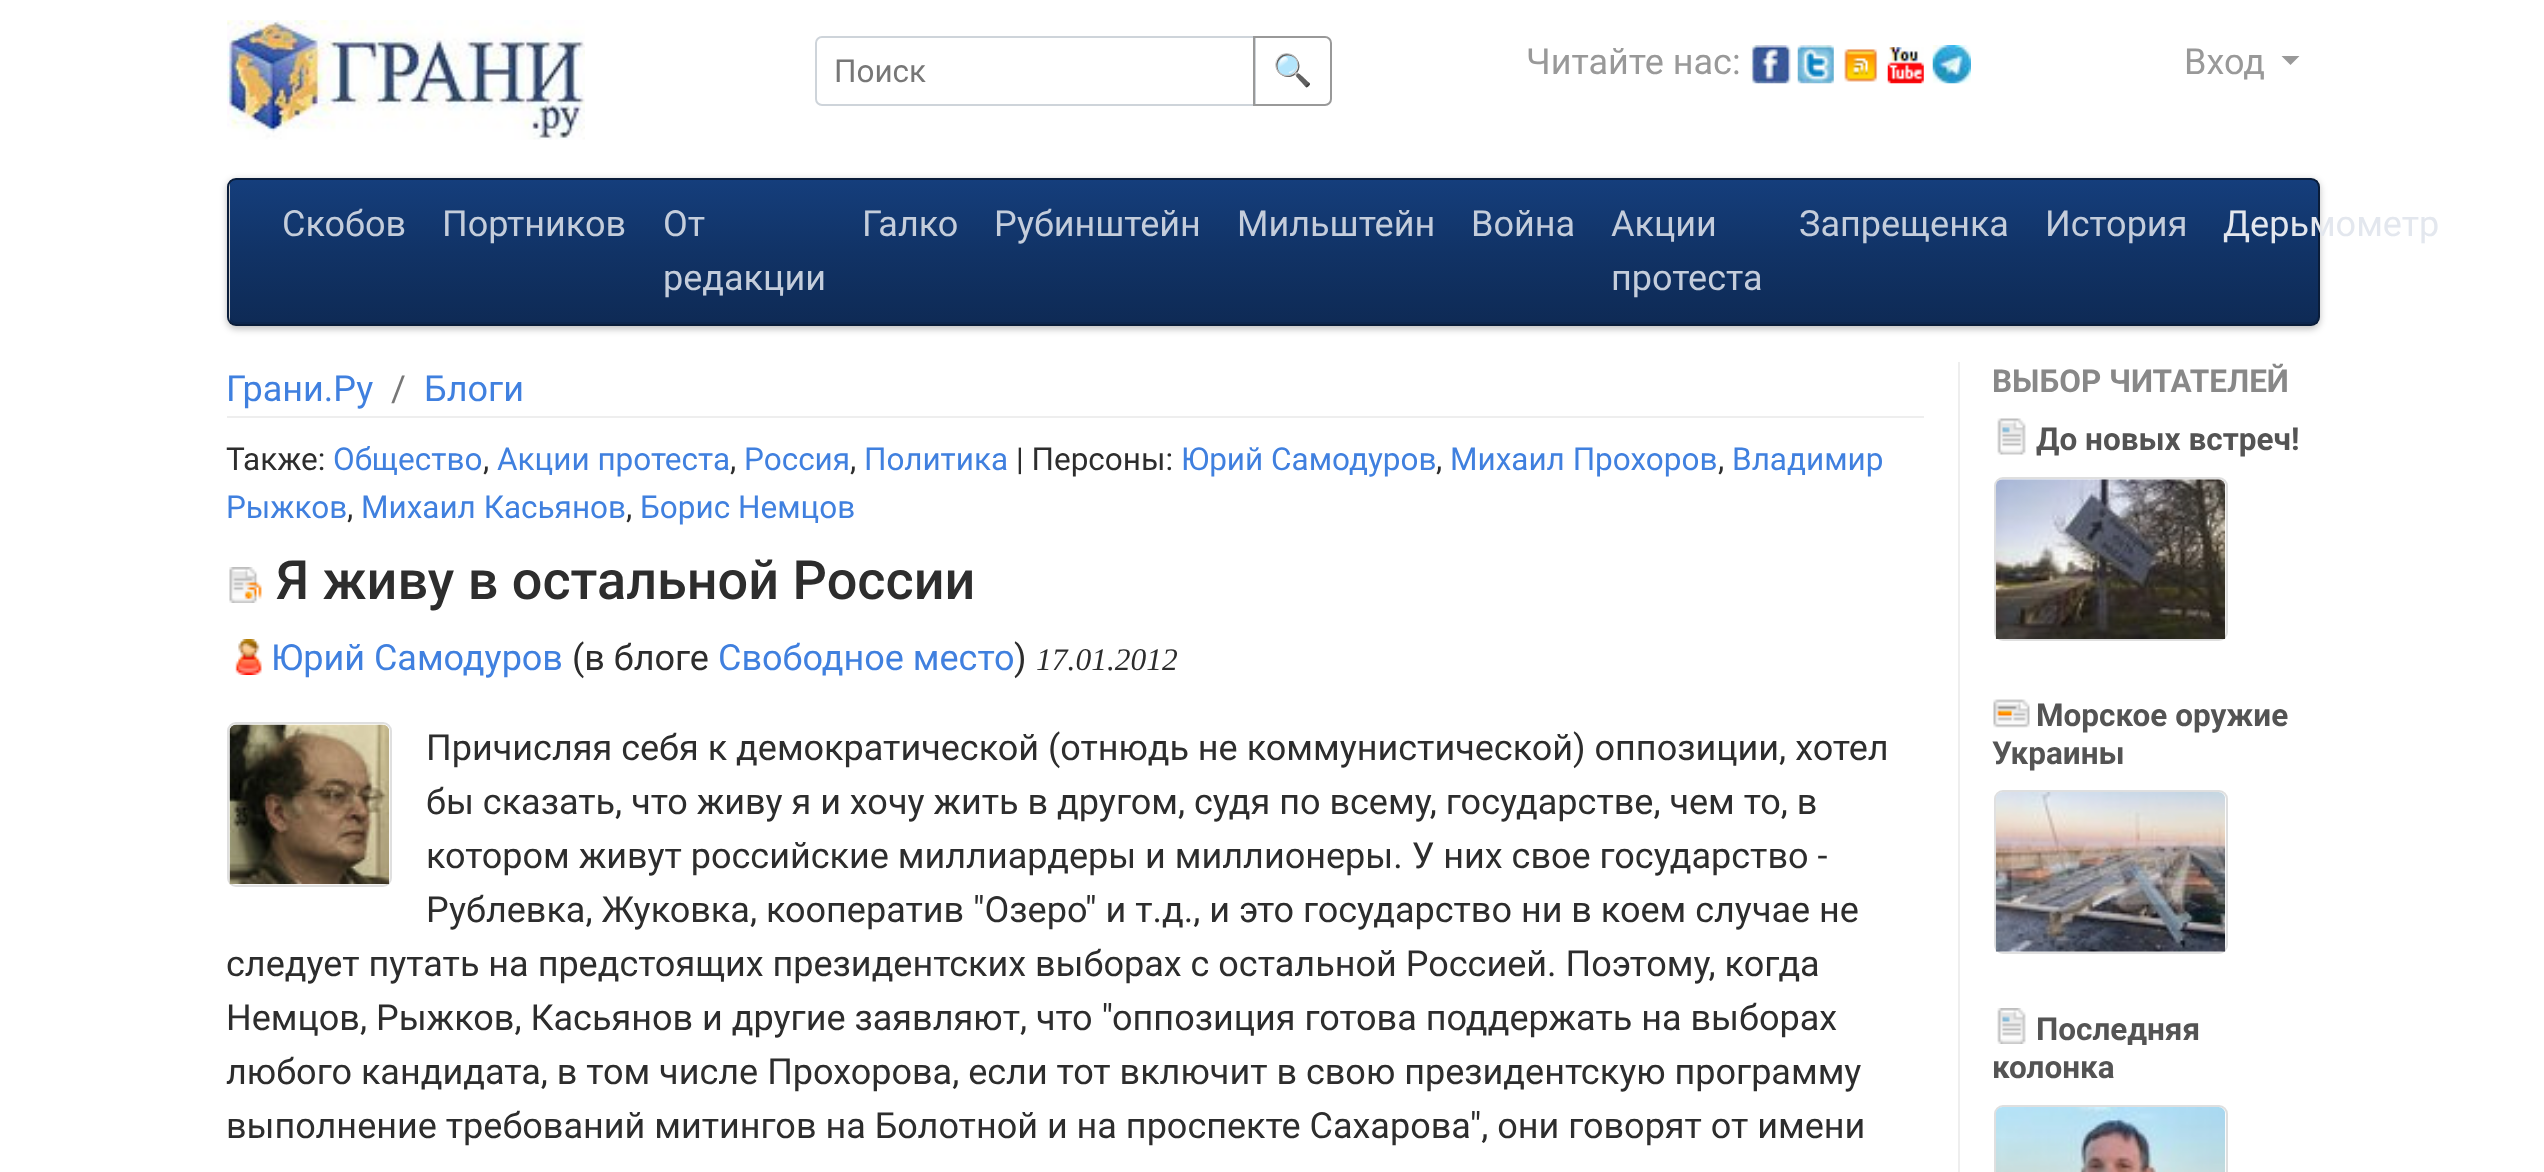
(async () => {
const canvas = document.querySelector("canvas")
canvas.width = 2544
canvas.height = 1172
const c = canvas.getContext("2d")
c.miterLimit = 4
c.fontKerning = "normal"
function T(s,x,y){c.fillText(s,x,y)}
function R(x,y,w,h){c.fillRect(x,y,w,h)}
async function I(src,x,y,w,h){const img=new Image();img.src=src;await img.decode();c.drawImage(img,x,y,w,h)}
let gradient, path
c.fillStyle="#fff"
R(0,0,2544,1172)
await I("1.png",227,20,358,120)
c.beginPath()
c.roundRect(816,37,439,68,[6,0,0,6])
c.strokeStyle="#ced4da"
c.lineWidth=2
c.stroke()
c.font="31.5px Roboto"
c.fillStyle="#777"
T("Поиск",834,82)
c.beginPath()
c.roundRect(1254,37,77,68,[0,6,6,0])
c.strokeStyle="#999"
c.stroke()
c.font="31.5px Noto Color Emoji"
c.fillStyle="#999"
T("🔍",1273,81)
c.font="36px Roboto"
T("Читайте нас:",1526,74)
await I("2.png",1750,45,41,39)
await I("3.png",1797,45,37,39)
await I("4.png",1844,49,34,33)
await I("5.png",1887,47,37,37)
await I("6.png",1932,45,39,39)
T("Вход",2184,74)
path = new Path2D("M2281.5 56h18l-9 9z")
c.fill(path)
c.fillStyle="#00000040"
c.filter="blur(3.5px)"
c.beginPath()
c.roundRect(227,180,2093,149,9)
c.fill()
c.filter="none"
c.save()
c.beginPath()
c.roundRect(227,178,2093,148,9)
c.clip()
gradient = c.createLinearGradient(1274,180,1274,324)
gradient.addColorStop(0,"#153e7c")
gradient.addColorStop(.5,"#136")
gradient.addColorStop(1,"#0e2a55")
c.fillStyle = gradient
R(230,180,2088,144)
c.restore()
c.fillStyle="#0d264d"
path = new Path2D("M230 315c0 4 2 9 7 9h2074c5 0 7-5 7-9c0 4-4 7-7 7h-2075c-3 0-6-3-6-7z")
c.fill(path)
c.beginPath()
c.roundRect(228,179,2091,146,8)
c.strokeStyle="#0a1d3a"
c.stroke()
c.fillStyle="#c4cddb"
T("Скобов",282,236)
T("Портников",442,236)
T("От",663,236)
T("редакции",663,290)
T("Галко",862,236)
T("Рубинштейн",994,236)
T("Мильштейн",1237,236)
T("Война",1471,236)
T("Акции",1611,236)
T("протеста",1611,290)
T("Запрещенка",1799,236)
T("История",2045,236)
c.fillStyle="#e3e7ee"
T("Дерьмометр",2223,236)
c.fillStyle="#eee"
R(227,416,1697,2)
c.fillStyle="#4080df"
T("Грани.Ру",226,401)
c.fillStyle="#777"
T("/",391,401)
c.fillStyle="#4080df"
T("Блоги",424,401)
c.font="31.5px Roboto"
c.fillStyle="#2d2d2d"
T("Также:",226,470)
c.fillStyle="#4080df"
T("Общество",333,470)
c.fillStyle="#2d2d2d"
T(",",483,470)
c.fillStyle="#4080df"
T("Акции протеста",497,470)
c.fillStyle="#2d2d2d"
T(",",730,470)
c.fillStyle="#4080df"
T("Россия",744,470)
c.fillStyle="#2d2d2d"
T(",",850,470)
c.fillStyle="#4080df"
T("Политика",864,470)
c.fillStyle="#2d2d2d"
T("| Персоны:",1016,470)
c.fillStyle="#4080df"
T("Юрий Самодуров",1181,470)
c.fillStyle="#2d2d2d"
T(",",1436,470)
c.fillStyle="#4080df"
T("Михаил Прохоров",1450,470)
c.fillStyle="#2d2d2d"
T(",",1718,470)
c.fillStyle="#4080df"
T("Владимир",1732,470)
T("Рыжков",226,518)
c.fillStyle="#2d2d2d"
T(",",347,518)
c.fillStyle="#4080df"
T("Михаил Касьянов",361,518)
c.fillStyle="#2d2d2d"
T(",",626,518)
c.fillStyle="#4080df"
T("Борис Немцов",640,518)
await I("7.png",229,567,33,36)
c.font="500 54px Roboto"
c.fillStyle="#2d2d2d"
T("Я живу в остальной России",276,599)
await I("8.png",235,639,27,36)
c.font="36px Roboto"
c.fillStyle="#4080df"
T("Юрий Самодуров",271,670)
c.fillStyle="#2d2d2d"
T("(в блоге",572,670)
c.fillStyle="#4080df"
T("Свободное место",718,670)
c.fillStyle="#2d2d2d"
T(")",1014,670)
c.font="italic 31.5px Liberation Serif"
T("17.01.2012",1036,670)
c.beginPath()
c.roundRect(228,723,163,163,8)
c.strokeStyle="#dfdfdf"
c.stroke()
await I("9.png",229,724,161,161)
c.font="36px Roboto"
T("Причисляя себя к демократической (отнюдь не коммунистической) оппозиции, хотел",426,760)
T("бы сказать, что живу я и хочу жить в другом, судя по всему, государстве, чем то, в",426,814)
T("котором живут российские миллиардеры и миллионеры. У них свое государство -",426,868)
T("Рублевка, Жуковка, кооператив \"Озеро\" и т.д., и это государство ни в коем случае не",426,922)
T("следует путать на предстоящих президентских выборах с остальной Россией. Поэтому, когда",226,976)
T("Немцов, Рыжков, Касьянов и другие заявляют, что \"оппозиция готова поддержать на выборах",226,1030)
T("любого кандидата, в том числе Прохорова, если тот включит в свою президентскую программу",226,1084)
T("выполнение требований митингов на Болотной и на проспекте Сахарова\", они говорят от имени",226,1138)
c.fillStyle="#eee"
R(1958,362,2,810)
c.font="bold 31.5px Roboto"
c.fillStyle="#888"
T("ВЫБОР ЧИТАТЕЛЕЙ",1992,392)
await I("10.png",1997,418,29,37)
c.fillStyle="#545454"
T("До новых встреч!",2036,450)
c.beginPath()
c.roundRect(1995,478,232,162,8)
c.stroke()
await I("11.png",1995,479,231,160)
await I("12.png",1993,699,37,29)
T("Морское оружие",2036,726)
T("Украины",1992,764)
c.beginPath()
c.roundRect(1995,791,232,162,8)
c.stroke()
await I("13.png",1995,792,231,160)
await I("14.png",1997,1008,29,36)
T("Последняя",2036,1040)
T("колонка",1992,1078)
c.beginPath()
c.roundRect(1995,1106,232,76,8)
c.stroke()
await I("15.png",1996,1107,230,65)
})()
